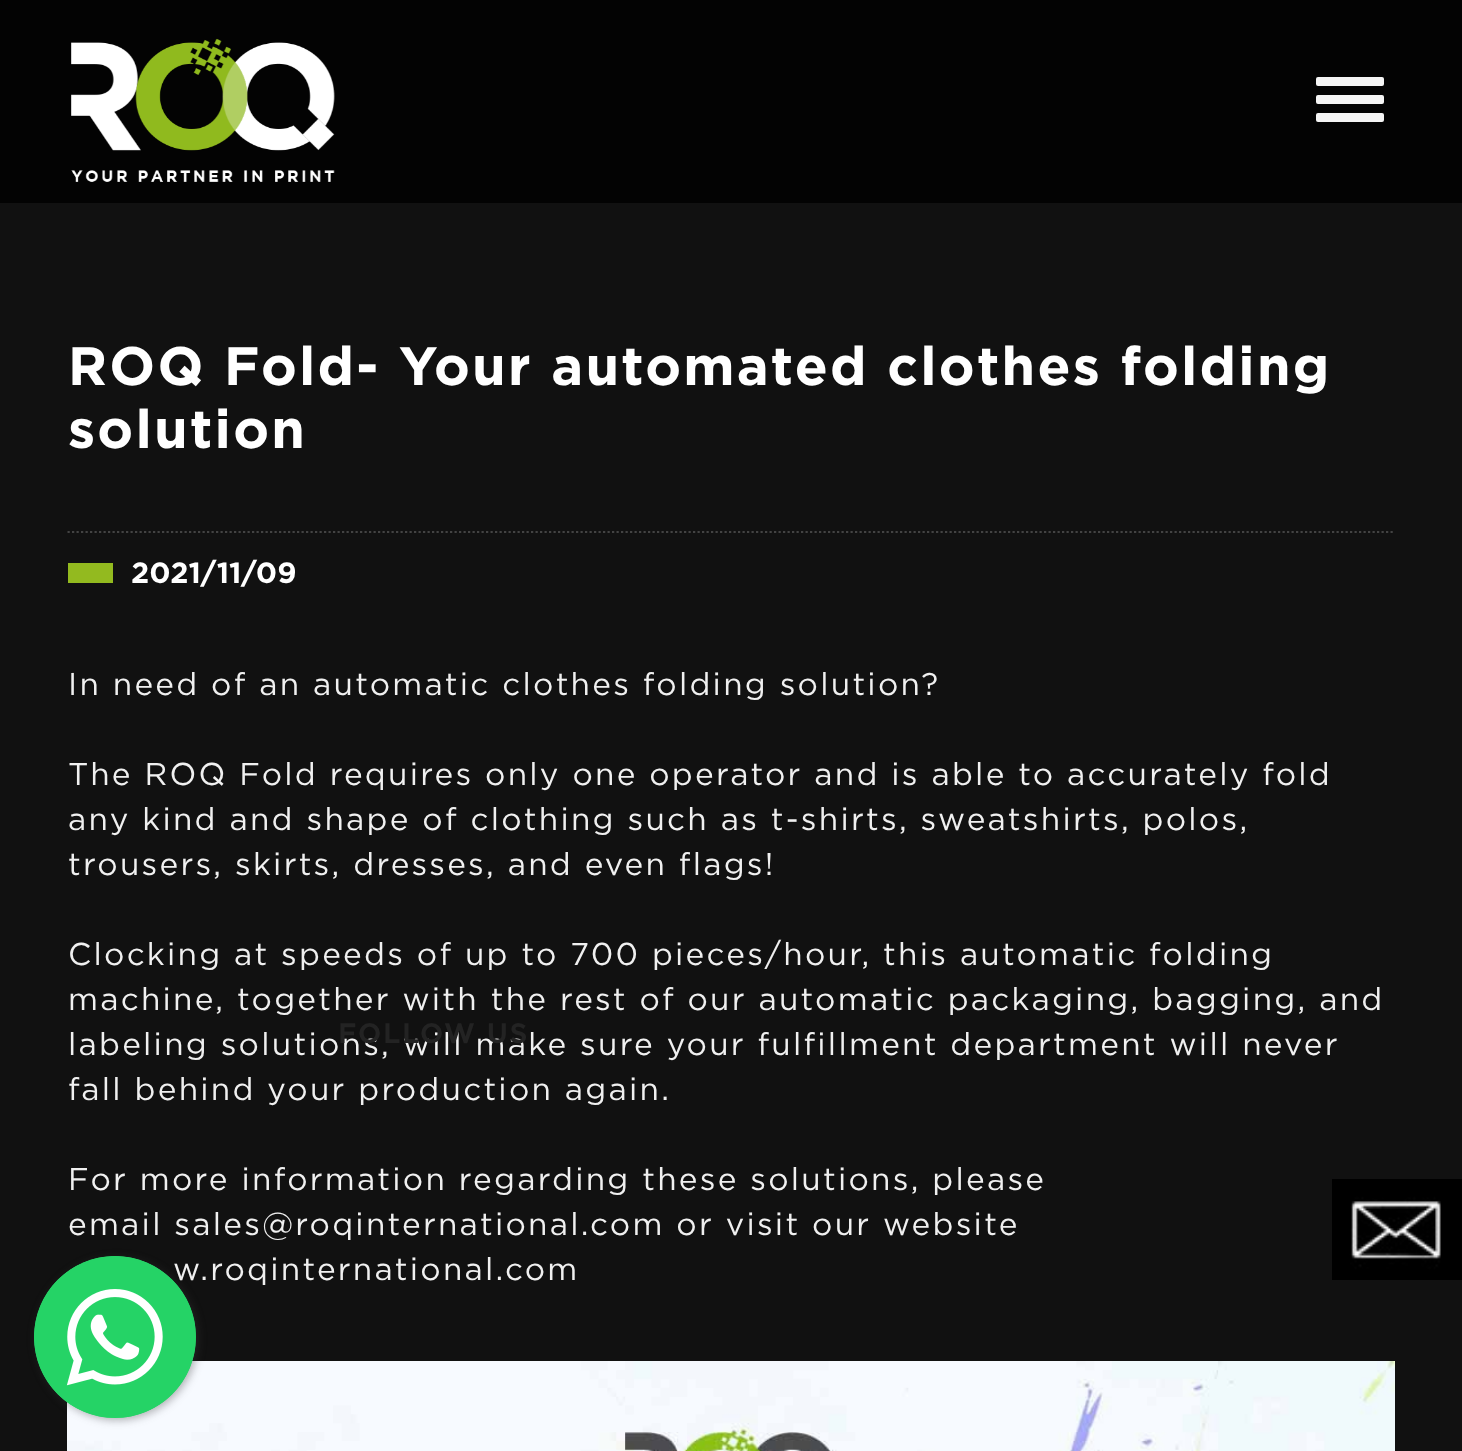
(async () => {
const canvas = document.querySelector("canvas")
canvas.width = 1462
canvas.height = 1451
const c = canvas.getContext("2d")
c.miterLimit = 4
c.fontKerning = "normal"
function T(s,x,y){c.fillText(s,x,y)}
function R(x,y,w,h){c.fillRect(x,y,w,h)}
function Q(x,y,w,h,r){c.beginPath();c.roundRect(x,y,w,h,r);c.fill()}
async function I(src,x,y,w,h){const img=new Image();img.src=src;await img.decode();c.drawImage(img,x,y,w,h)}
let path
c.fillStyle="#111"
R(0,0,1462,1451)
c.fillStyle="#030303"
R(0,0,1462,203)
await I("1.png",71,38,264,144)
c.fillStyle="#f5f5f5"
Q(1316,77,68,9,2)
Q(1316,95,68,9,2)
Q(1316,113,68,9,2)
c.letterSpacing="2.25px"
c.font="bold 54px Gotham"
c.fillStyle="#fff"
T("ROQ Fold- Your automated clothes folding",68,385)
T("solution",68,448)
path = new Path2D("M67.5 532h1327.5")
c.strokeStyle="#434343"
c.lineWidth=2.2
c.setLineDash([2.25,2.25])
c.stroke(path)
c.fillStyle="#93ba1f"
R(68,563,45,20)
c.letterSpacing="0px"
c.font="bold 29.25px Gotham"
c.fillStyle="#fff"
T("2021/11/09",131,583)
c.letterSpacing="2.25px"
c.font="31.5px Gotham"
c.fillStyle="#f0f0f0"
T("In need of an automatic clothes folding solution?",68,695)
T("The ROQ Fold requires only one operator and is able to accurately fold",68,785)
T("any kind and shape of clothing such as t-shirts, sweatshirts, polos,",68,830)
T("trousers, skirts, dresses, and even flags!",68,875)
T("Clocking at speeds of up to 700 pieces/hour, this automatic folding",68,965)
T("machine, together with the rest of our automatic packaging, bagging, and",68,1010)
T("labeling solutions, will make sure your fulfillment department will never",68,1055)
T("fall behind your production again.",68,1100)
T("For more information regarding these solutions, please",68,1190)
T("email sales@roqinternational.com or visit our website",68,1235)
T("w.roqinternational.com",173,1280)
await I("2.png",67,1361,1328,90)
c.font="bold 27px 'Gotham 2'"
c.fillStyle="#232323"
T("FOLLOW US",338,1043)
await I("3.png",1332,1179,130,101)
c.fillStyle="#3c3c3c66"
c.filter="blur(4.5px)"
c.beginPath()
c.roundRect(36,1258,162,162,81)
c.fill()
c.filter="none"
c.fillStyle="#25d366"
c.beginPath()
c.arc(115,1337,81,0,7)
c.fill()
await I("4.png",34,1256,162,162)
})()
